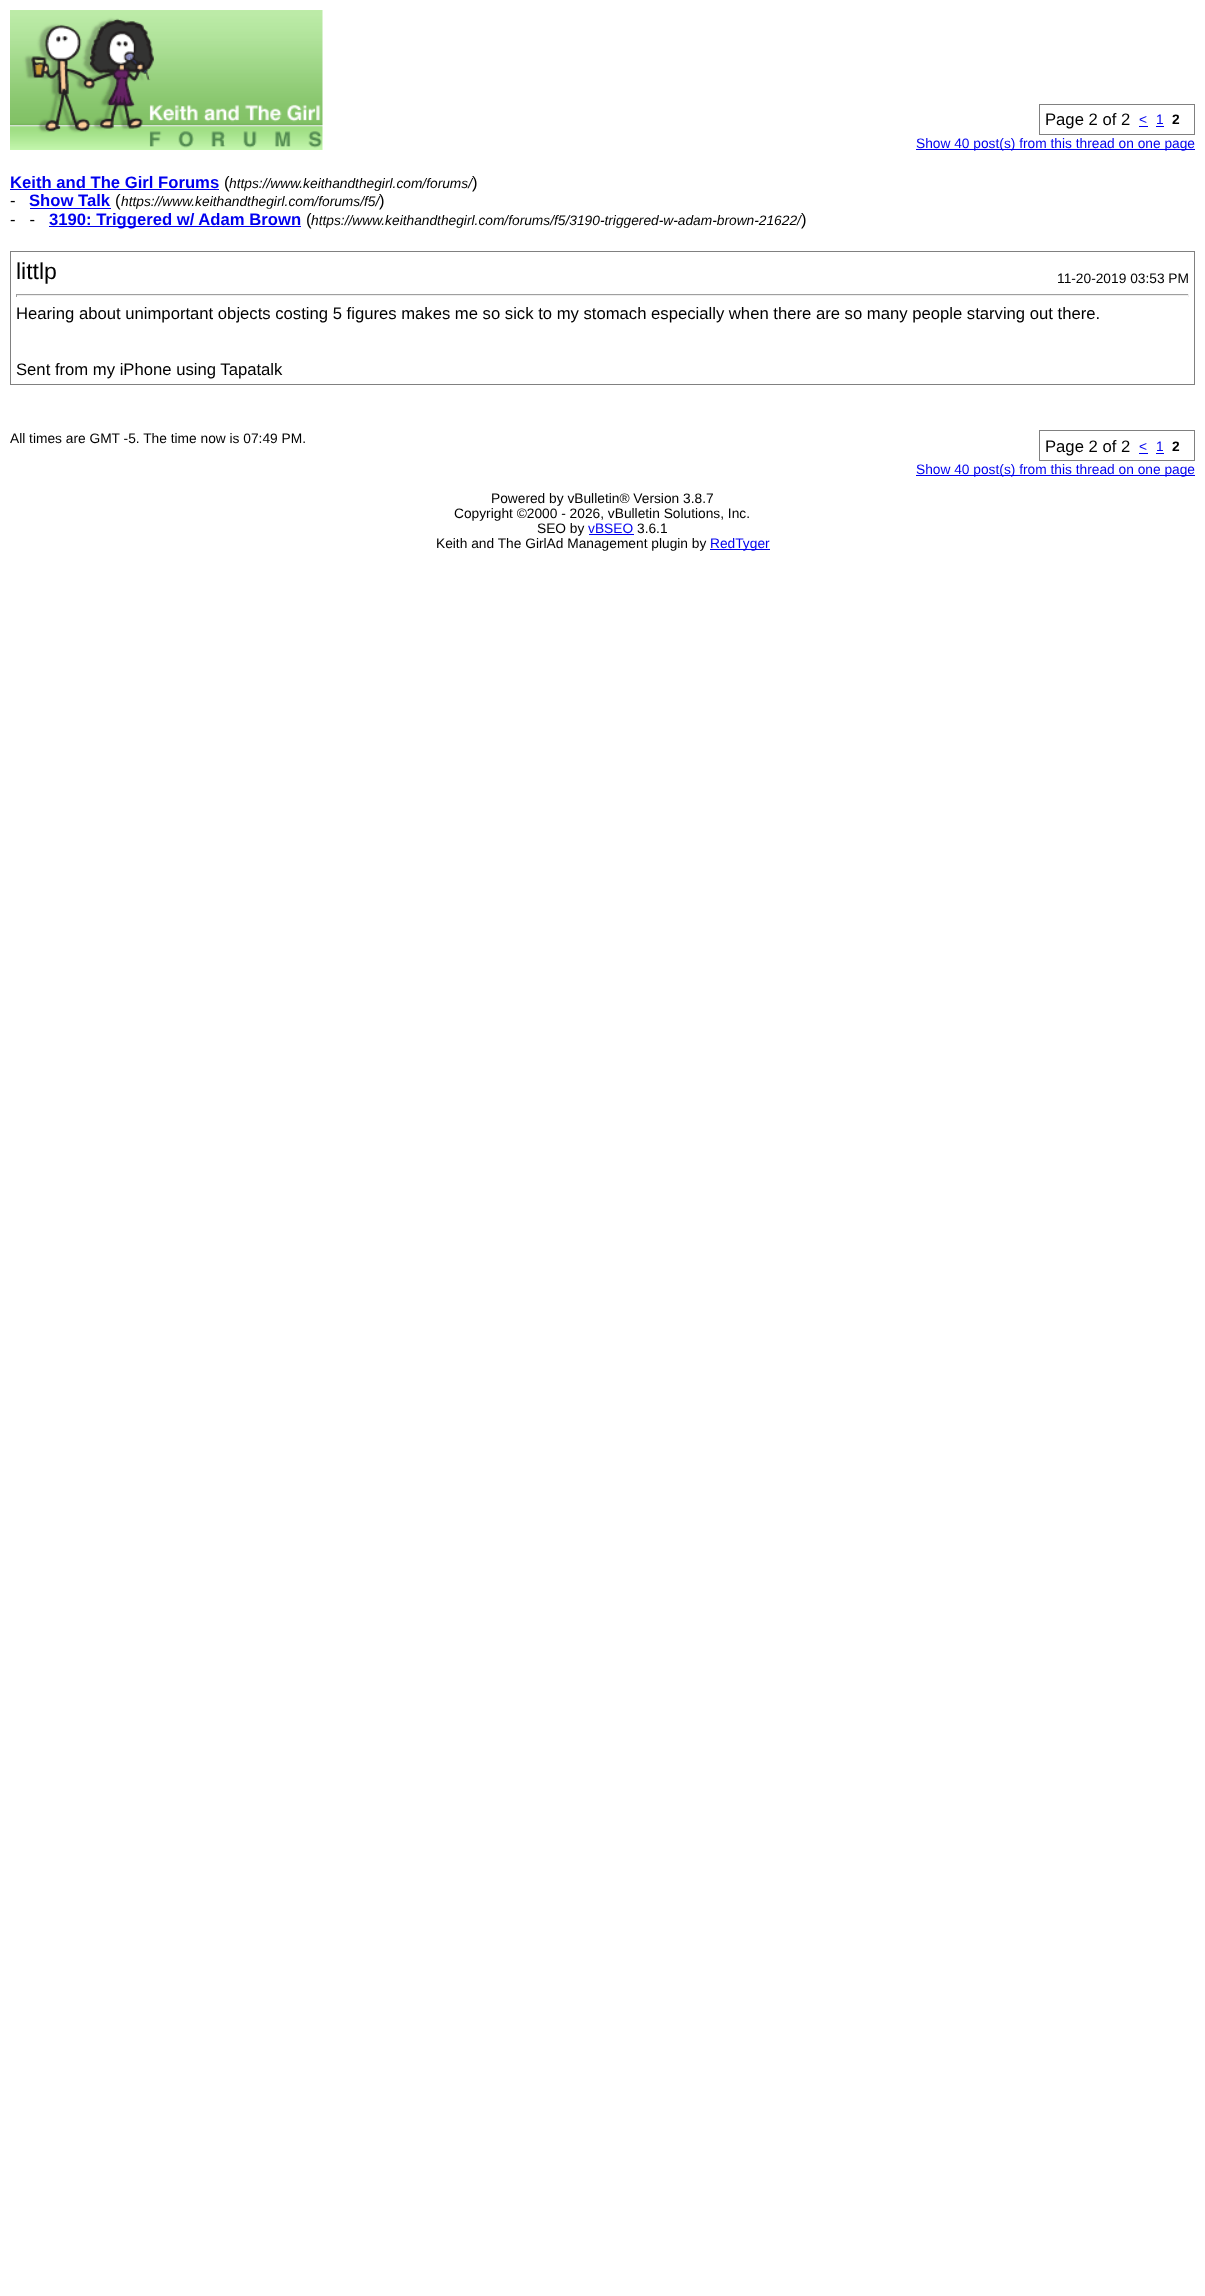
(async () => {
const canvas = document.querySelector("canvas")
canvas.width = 1205
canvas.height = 2296
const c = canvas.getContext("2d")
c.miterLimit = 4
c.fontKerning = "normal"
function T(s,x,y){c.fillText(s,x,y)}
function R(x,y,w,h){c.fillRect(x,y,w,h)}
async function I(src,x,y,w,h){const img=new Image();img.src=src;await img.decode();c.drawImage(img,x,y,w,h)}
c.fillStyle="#fff"
R(0,0,1205,2296)
await I("1.png",10,10,313,140)
c.strokeStyle="#808080"
c.strokeRect(1039.5,104.5,155,30)
c.font="16.67px Liberation Sans"
c.fillStyle="#000"
T("Page 2 of 2",1045,125)
c.font="13.75px Liberation Sans"
c.fillStyle="#00e"
T("<",1139,124)
R(1139,126,9,1)
T("1",1156,124)
R(1156,126,8,1)
c.font="bold 13.75px Liberation Sans"
c.fillStyle="#000"
T("2",1172,124)
c.fillStyle="#00e"
R(916,149,279,1)
c.font="13.75px Liberation Sans"
T("Show 40 post(s) from this thread on one page",916,148)
c.font="bold 16.67px Liberation Sans"
T("Keith and The Girl Forums",10,188)
R(10,189,209,1)
c.font="16.67px Liberation Sans"
c.fillStyle="#000"
T("(",224,188)
c.font="italic 13.75px Liberation Sans"
T("https://www.keithandthegirl.com/forums/",229,188)
c.font="16.67px Liberation Sans"
T(")",472,188)
T("-",10,206)
c.font="bold 16.67px Liberation Sans"
c.fillStyle="#00e"
T("Show Talk",29,206)
R(30,208,81,1)
c.font="16.67px Liberation Sans"
c.fillStyle="#000"
T("(",115,206)
c.font="italic 13.75px Liberation Sans"
T("https://www.keithandthegirl.com/forums/f5/",121,206)
c.font="16.67px Liberation Sans"
T(")",379,206)
T("-   -",10,225)
c.fillStyle="#00e"
R(49,226,252,1)
c.font="bold 16.67px Liberation Sans"
T("3190: Triggered w/ Adam Brown",49,225)
c.font="16.67px Liberation Sans"
c.fillStyle="#000"
T("(",306,225)
c.font="italic 13.75px Liberation Sans"
T("https://www.keithandthegirl.com/forums/f5/3190-triggered-w-adam-brown-21622/",311,225)
c.font="16.67px Liberation Sans"
T(")",801,225)
c.strokeRect(10.5,251.5,1184,133)
c.font="23px Liberation Sans"
T("littlp",16,279)
c.font="13.75px Liberation Sans"
T("11-20-2019 03:53 PM",1057,283)
c.fillStyle="#9f9f9f"
R(16,294,1173,1)
c.fillStyle="#eee"
R(1188,294,1,3)
R(16,295,1173,1)
c.fillStyle="#9f9f9f"
R(16,294,1,3)
c.font="16.67px Liberation Sans"
c.fillStyle="#000"
T("Hearing about unimportant objects costing 5 figures makes me so sick to my stomach especially when there are so many people starving out there.",16,319)
T("Sent from my iPhone using Tapatalk",16,375)
c.font="13.75px Liberation Sans"
T("All times are GMT -5. The time now is 07:49 PM.",10,443)
c.strokeRect(1039.5,430.5,155,30)
c.font="16.67px Liberation Sans"
T("Page 2 of 2",1045,452)
c.font="13.75px Liberation Sans"
c.fillStyle="#00e"
T("<",1139,451)
R(1139,453,9,1)
T("1",1156,451)
R(1156,453,8,1)
c.font="bold 13.75px Liberation Sans"
c.fillStyle="#000"
T("2",1172,451)
c.fillStyle="#00e"
R(916,475,279,1)
c.font="13.75px Liberation Sans"
T("Show 40 post(s) from this thread on one page",916,474)
c.fillStyle="#000"
T("Powered by vBulletin® Version 3.8.7",491,503)
T("Copyright ©2000 - 2026, vBulletin Solutions, Inc.",454,518)
T("SEO by",537,533)
c.fillStyle="#00e"
T("vBSEO",588,533)
R(589,534,45,1)
c.fillStyle="#000"
T("3.6.1",637,533)
T("Keith and The GirlAd Management plugin by",436,548)
c.fillStyle="#00e"
R(710,549,60,1)
T("RedTyger",710,548)
})()
